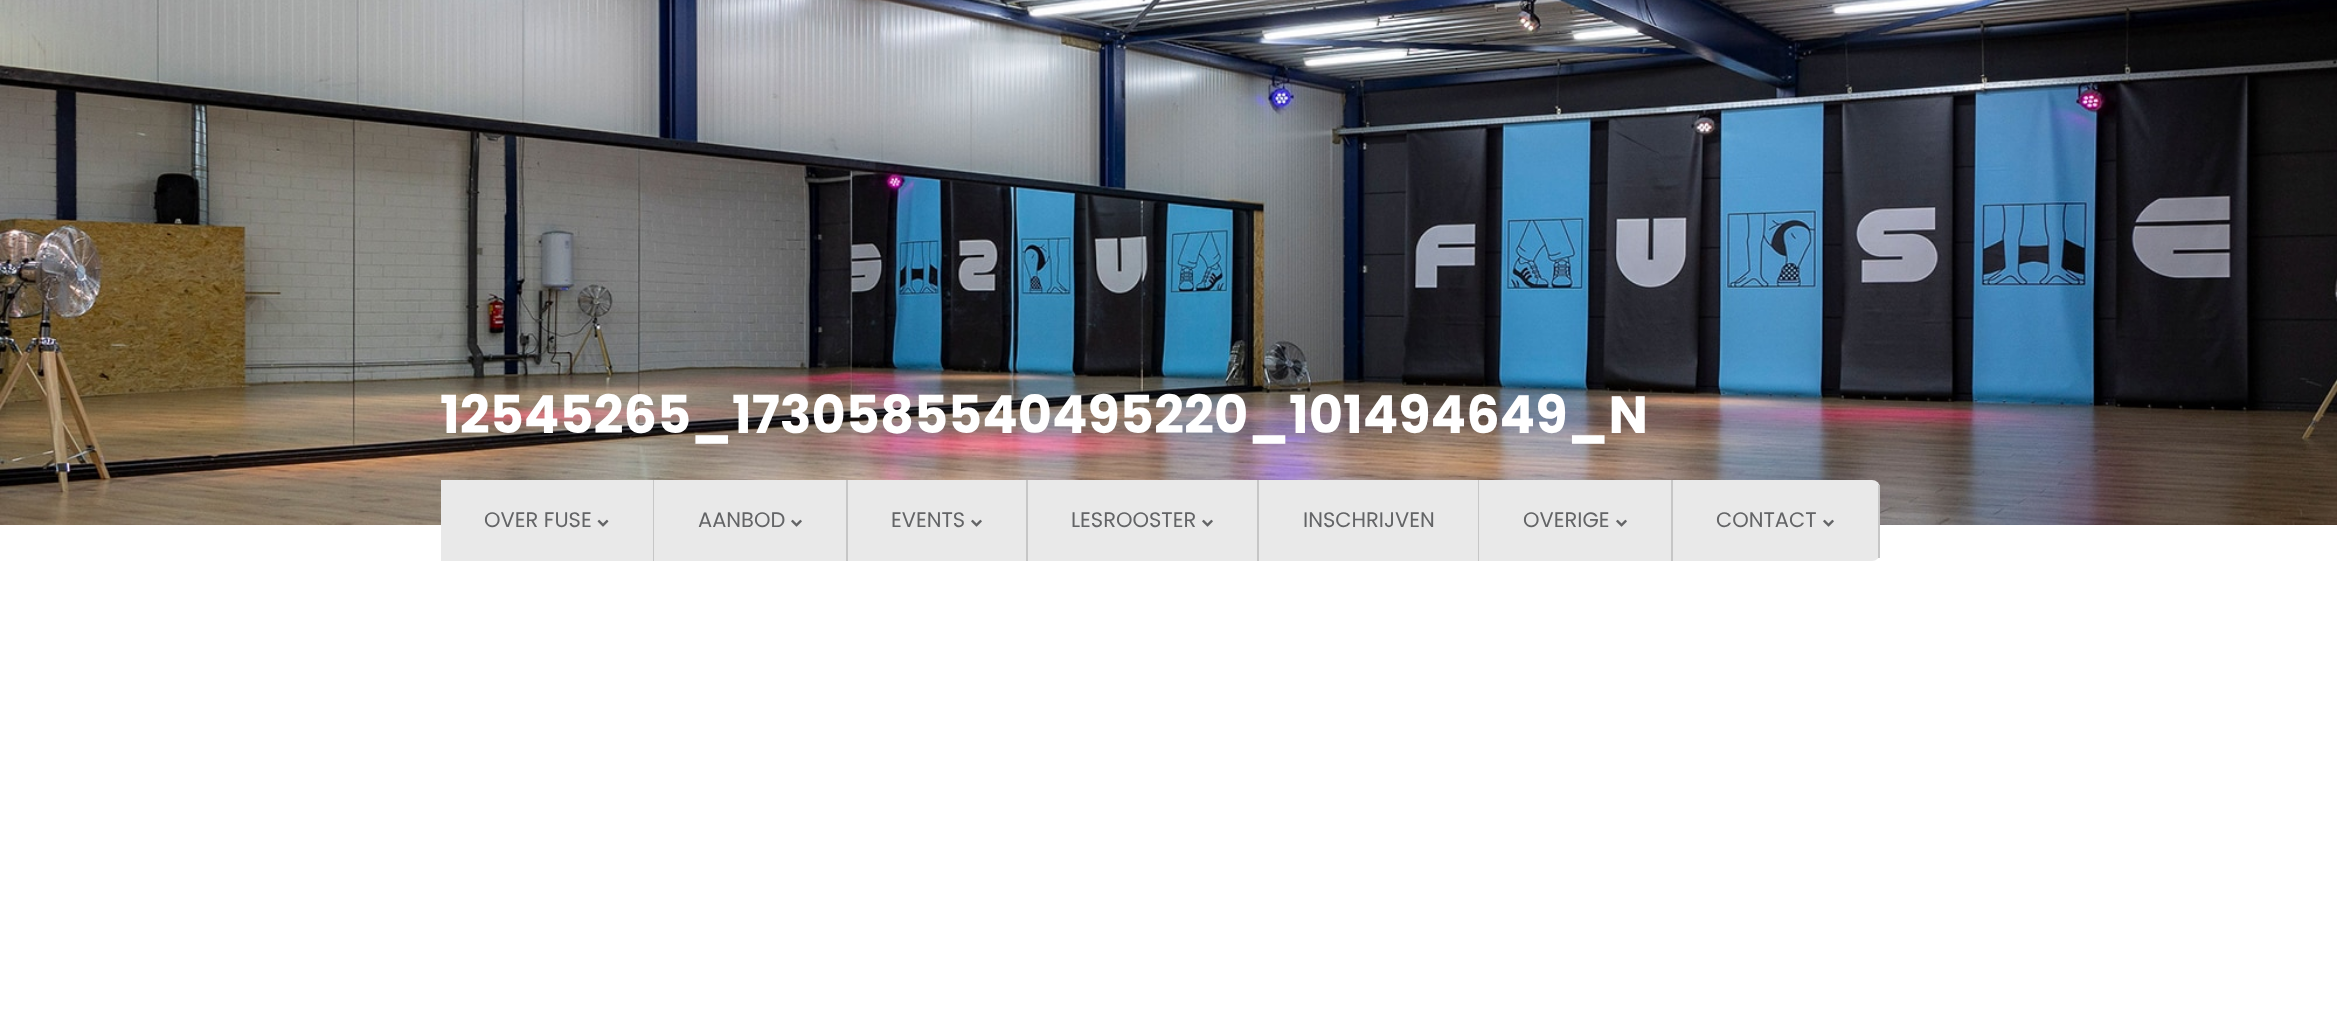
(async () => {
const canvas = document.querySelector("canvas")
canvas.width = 2337
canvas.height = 1035
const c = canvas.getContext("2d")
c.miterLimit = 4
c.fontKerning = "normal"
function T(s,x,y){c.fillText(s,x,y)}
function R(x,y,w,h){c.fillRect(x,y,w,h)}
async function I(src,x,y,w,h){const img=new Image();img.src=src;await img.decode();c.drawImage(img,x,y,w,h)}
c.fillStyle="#fff"
R(0,0,2337,1035)
await I("1.png",0,0,2337,525)
c.font="bold 52.5px Poppins"
T("12545265_1730585540495220_101494649_N",440,433)
c.fillStyle="#e9e9e9"
R(441,480,212,81)
c.fillStyle="#c6c6c6"
R(653,480,1,81)
c.font="21px Poppins"
c.fillStyle="#636466"
T("OVER FUSE",484,527)
await I("2.png",597,519,12,8)
c.fillStyle="#e9e9e9"
R(654,480,192,81)
c.fillStyle="#c6c6c6"
R(846,480,2,81)
c.fillStyle="#636466"
T("AANBOD",698,527)
await I("3.png",791,519,11,8)
c.fillStyle="#e9e9e9"
R(848,480,178,81)
c.fillStyle="#c6c6c6"
R(1026,480,2,81)
c.fillStyle="#636466"
T("EVENTS",891,527)
await I("3.png",971,519,11,8)
c.fillStyle="#e9e9e9"
R(1028,480,229,81)
c.fillStyle="#c6c6c6"
R(1257,480,2,81)
c.fillStyle="#636466"
T("LESROOSTER",1071,527)
await I("3.png",1202,519,11,8)
c.fillStyle="#e9e9e9"
R(1259,480,219,81)
c.fillStyle="#c6c6c6"
R(1478,480,1,81)
c.fillStyle="#636466"
T("INSCHRIJVEN",1303,527)
c.fillStyle="#e9e9e9"
R(1479,480,192,81)
c.fillStyle="#c6c6c6"
R(1671,480,2,81)
c.fillStyle="#636466"
T("OVERIGE",1523,527)
await I("3.png",1616,519,11,8)
c.fillStyle="#e9e9e9"
c.beginPath()
c.roundRect(1673,480,207,81,[0,8,8,0])
c.fill()
c.fillStyle="#c6c6c6"
R(1878,485,2,73)
c.fillStyle="#636466"
T("CONTACT",1716,527)
await I("3.png",1823,519,11,8)
})()
